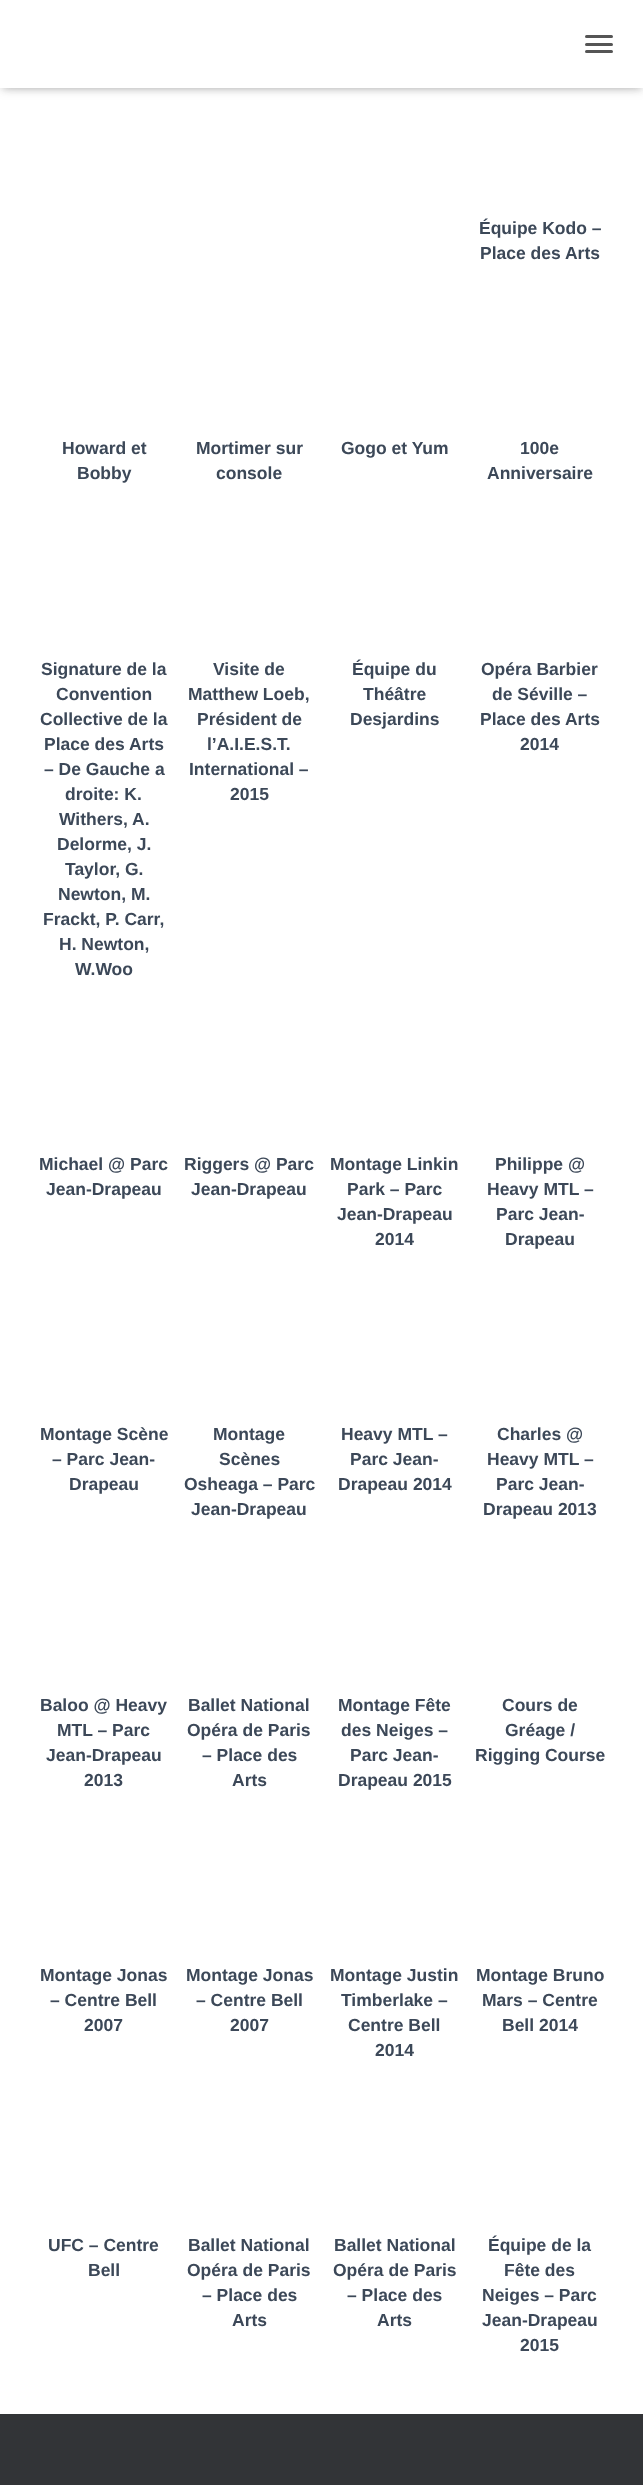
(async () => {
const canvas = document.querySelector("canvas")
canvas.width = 643
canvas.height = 2485
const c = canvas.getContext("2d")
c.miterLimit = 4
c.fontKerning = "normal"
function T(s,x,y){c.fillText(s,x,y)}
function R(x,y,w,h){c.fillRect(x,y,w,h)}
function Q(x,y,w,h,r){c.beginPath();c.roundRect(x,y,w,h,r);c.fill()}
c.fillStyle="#323437"
R(0,0,643,2485)
c.fillStyle="#fff"
R(0,88,643,2326)
c.fillStyle="#0000001a"
c.filter="blur(3px)"
c.beginPath()
c.rect(3,8,638,82)
c.fill()
c.filter="none"
c.fillStyle="#0000001f"
c.filter="blur(6px)"
c.beginPath()
c.rect(0,1,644,88)
c.fill()
c.filter="none"
c.fillStyle="#0000006b"
c.filter="blur(6px)"
c.beginPath()
c.rect(8,9,628,72)
c.fill()
c.filter="none"
c.fillStyle="#fff"
R(0,0,643,88)
c.fillStyle="#555"
Q(585,35,28,3,1.5)
Q(585,43,28,3,1.5)
Q(585,50,28,3,1.5)
c.font="bold 17.5px Liberation Sans"
c.fillStyle="#3c4858"
T("Équipe Kodo –",479,234)
T("Place des Arts",480,259)
T("Howard et",62,454)
T("Bobby",77,479)
T("Mortimer sur",196,454)
T("console",216,479)
T("Gogo et Yum",341,454)
T("100e",520,454)
T("Anniversaire",487,479)
T("Signature de la",41,675)
T("Convention",56,700)
T("Collective de la",40,725)
T("Place des Arts",44,750)
T("– De Gauche a",44,775)
T("droite: K.",65,800)
T("Withers, A.",59,825)
T("Delorme, J.",57,850)
T("Taylor, G.",65,875)
T("Newton, M.",58,900)
T("Frackt, P. Carr,",43,925)
T("H. Newton,",59,950)
T("W.Woo",75,975)
T("Visite de",213,675)
T("Matthew Loeb,",188,700)
T("Président de",197,725)
T("l’A.I.E.S.T.",207,750)
T("International –",189,775)
T("2015",230,800)
T("Équipe du",352,675)
T("Théâtre",363,700)
T("Desjardins",350,725)
T("Opéra Barbier",481,675)
T("de Séville –",492,700)
T("Place des Arts",480,725)
T("2014",520,750)
T("Michael @ Parc",39,1170)
T("Jean-Drapeau",46,1195)
T("Riggers @ Parc",184,1170)
T("Jean-Drapeau",191,1195)
T("Montage Linkin",330,1170)
T("Park – Parc",347,1195)
T("Jean-Drapeau",337,1220)
T("2014",375,1245)
T("Philippe @",495,1170)
T("Heavy MTL –",487,1195)
T("Parc Jean-",496,1220)
T("Drapeau",505,1245)
T("Montage Scène",40,1440)
T("– Parc Jean-",52,1465)
T("Drapeau",69,1490)
T("Montage",213,1440)
T("Scènes",219,1465)
T("Osheaga – Parc",184,1490)
T("Jean-Drapeau",191,1515)
T("Heavy MTL –",341,1440)
T("Parc Jean-",350,1465)
T("Drapeau 2014",338,1490)
T("Charles @",497,1440)
T("Heavy MTL –",487,1465)
T("Parc Jean-",496,1490)
T("Drapeau 2013",483,1515)
T("Baloo @ Heavy",40,1711)
T("MTL – Parc",57,1736)
T("Jean-Drapeau",46,1761)
T("2013",84,1786)
T("Ballet National",188,1711)
T("Opéra de Paris",187,1736)
T("– Place des",202,1761)
T("Arts",232,1786)
T("Montage Fête",338,1711)
T("des Neiges –",341,1736)
T("Parc Jean-",350,1761)
T("Drapeau 2015",338,1786)
T("Cours de",502,1711)
T("Gréage /",505,1736)
T("Rigging Course",475,1761)
T("Montage Jonas",40,1981)
T("– Centre Bell",50,2006)
T("2007",84,2031)
T("Montage Jonas",186,1981)
T("– Centre Bell",196,2006)
T("2007",230,2031)
T("Montage Justin",330,1981)
T("Timberlake –",341,2006)
T("Centre Bell",348,2031)
T("2014",375,2056)
T("Montage Bruno",476,1981)
T("Mars – Centre",482,2006)
T("Bell 2014",502,2031)
T("UFC – Centre",48,2251)
T("Bell",88,2276)
T("Ballet National",188,2251)
T("Opéra de Paris",187,2276)
T("– Place des",202,2301)
T("Arts",232,2326)
T("Ballet National",334,2251)
T("Opéra de Paris",333,2276)
T("– Place des",347,2301)
T("Arts",377,2326)
T("Équipe de la",488,2251)
T("Fête des",504,2276)
T("Neiges – Parc",482,2301)
T("Jean-Drapeau",482,2326)
T("2015",520,2351)
})()
